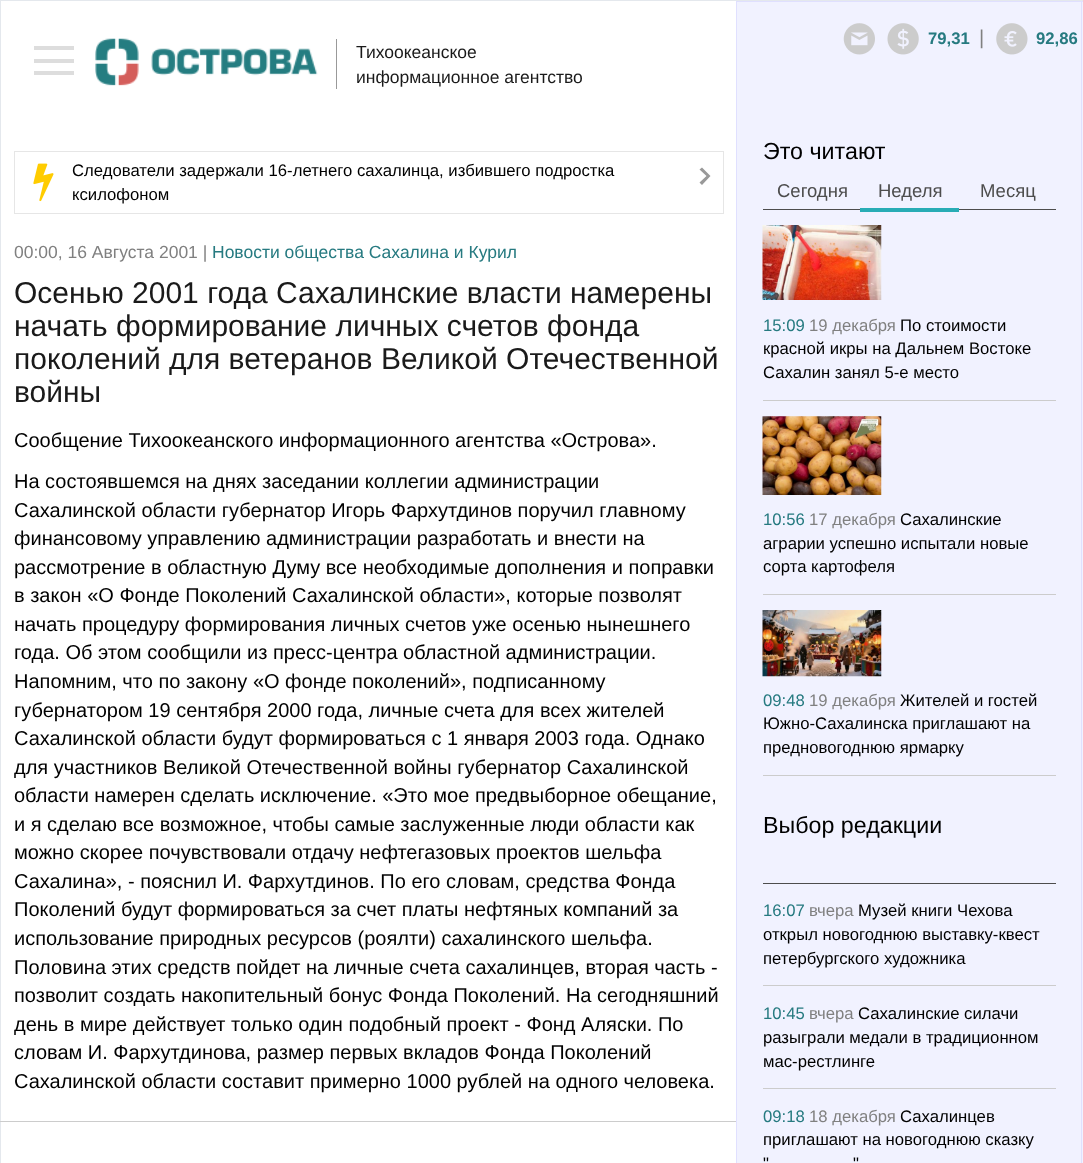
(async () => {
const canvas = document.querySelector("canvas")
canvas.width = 1083
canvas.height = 1163
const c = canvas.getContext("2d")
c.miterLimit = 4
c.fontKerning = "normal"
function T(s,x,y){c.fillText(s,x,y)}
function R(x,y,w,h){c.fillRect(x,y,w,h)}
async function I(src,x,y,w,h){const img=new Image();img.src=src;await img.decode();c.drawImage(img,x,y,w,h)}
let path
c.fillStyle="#e4e8ed"
R(0,0,1083,1163)
c.fillStyle="#fff"
R(1,1,735,1162)
c.fillStyle="#ddd"
R(34,46,40,4)
R(34,59,40,4)
R(34,71,40,4)
c.fillStyle="#f1f2ff"
R(737,2,346,1161)
c.fillStyle="#e0e0ff"
R(736,1,347,1)
R(1081,1,1,1162)
R(736,1,1,1162)
await I("1.png",843,23,32,32)
await I("2.png",887,23,32,32)
c.font="bold 16.7px Liberation Sans"
c.fillStyle="#267a80"
T("79,31",928,44)
c.font="20px Liberation Sans"
c.fillStyle="#808080"
T("|",979,44)
await I("3.png",996,23,32,32)
c.font="bold 16.7px Liberation Sans"
c.fillStyle="#267a80"
T("92,86",1036,44)
await I("4.png",95,38,223,48)
c.fillStyle="#999"
R(336,39,1,50)
c.font="17.5px Liberation Sans"
c.fillStyle="#1a1a1a"
T("Тихоокеанское",356,58)
T("информационное агентство",356,83)
c.strokeStyle="#e6e6e6"
c.strokeRect(14.5,151.5,709,62)
await I("5.png",33,163,21,39)
c.font="16.7px Liberation Sans"
c.fillStyle="#000"
T("Следователи задержали 16-летнего сахалинца, избившего подростка",72,176)
T("ксилофоном",72,200)
c.fillStyle="#999"
path = new Path2D("M702 167.5l8.5 8.5l-8.5 9l-2.5-2.5l7-6.5l-7-6.5z")
c.fill(path)
c.font="17.5px Liberation Sans"
c.fillStyle="#808080"
T("00:00, 16 Августа 2001 |",14,258)
c.fillStyle="#267a80"
T("Новости общества Сахалина и Курил",212,258)
c.font="30px Liberation Sans"
c.fillStyle="#1a1a1a"
T("Осенью 2001 года Сахалинские власти намерены",14,303)
T("начать формирование личных счетов фонда",14,336)
T("поколений для ветеранов Великой Отечественной",14,369)
T("войны",14,402)
c.font="20px Liberation Sans"
c.fillStyle="#000"
T("Сообщение Тихоокеанского информационного агентства «Острова».",14,447)
T("На состоявшемся на днях заседании коллегии администрации",14,488)
T("Сахалинской области губернатор Игорь Фархутдинов поручил главному",14,517)
T("финансовому управлению администрации разработать и внести на",14,545)
T("рассмотрение в областную Думу все необходимые дополнения и поправки",14,574)
T("в закон «О Фонде Поколений Сахалинской области», которые позволят",14,602)
T("начать процедуру формирования личных счетов уже осенью нынешнего",14,631)
T("года. Об этом сообщили из пресс-центра областной администрации.",14,659)
T("Напомним, что по закону «О фонде поколений», подписанному",14,688)
T("губернатором 19 сентября 2000 года, личные счета для всех жителей",14,717)
T("Сахалинской области будут формироваться с 1 января 2003 года. Однако",14,745)
T("для участников Великой Отечественной войны губернатор Сахалинской",14,774)
T("области намерен сделать исключение. «Это мое предвыборное обещание,",14,802)
T("и я сделаю все возможное, чтобы самые заслуженные люди области как",14,831)
T("можно скорее почувствовали отдачу нефтегазовых проектов шельфа",14,859)
T("Сахалина», - пояснил И. Фархутдинов. По его словам, средства Фонда",14,888)
T("Поколений будут формироваться за счет платы нефтяных компаний за",14,916)
T("использование природных ресурсов (роялти) сахалинского шельфа.",14,945)
T("Половина этих средств пойдет на личные счета сахалинцев, вторая часть -",14,974)
T("позволит создать накопительный бонус Фонда Поколений. На сегодняшний",14,1002)
T("день в мире действует только один подобный проект - Фонд Аляски. По",14,1031)
T("словам И. Фархутдинова, размер первых вкладов Фонда Поколений",14,1059)
T("Сахалинской области составит примерно 1000 рублей на одного человека.",14,1088)
c.fillStyle="#ccc"
R(0,1121,736,1)
c.font="23.25px Liberation Sans"
c.fillStyle="#000"
T("Это читают",763,159)
c.fillStyle="#4d4d4d"
R(763,209,293,1)
c.font="18.5px Liberation Sans"
T("Сегодня",777,197)
T("Неделя",878,197)
c.fillStyle="#28acb5"
R(860,208,99,4)
c.fillStyle="#4d4d4d"
T("Месяц",980,197)
c.fillStyle="#ccc"
R(763,400,293,1)
await I("6.png",762,225,120,75)
c.font="16.7px Liberation Sans"
c.fillStyle="#267a80"
T("15:09",763,331)
c.fillStyle="#808080"
T("19 декабря",809,331)
c.fillStyle="#000"
T("По стоимости",900,331)
T("красной икры на Дальнем Востоке",763,354)
T("Сахалин занял 5-е место",763,378)
c.fillStyle="#ccc"
R(763,594,293,1)
await I("7.png",762,416,120,79)
c.fillStyle="#267a80"
T("10:56",763,525)
c.fillStyle="#808080"
T("17 декабря",809,525)
c.fillStyle="#000"
T("Сахалинские",900,525)
T("аграрии успешно испытали новые",763,549)
T("сорта картофеля",763,572)
c.fillStyle="#ccc"
R(763,775,293,1)
await I("8.png",762,610,120,67)
c.fillStyle="#267a80"
T("09:48",763,706)
c.fillStyle="#808080"
T("19 декабря",809,706)
c.fillStyle="#000"
T("Жителей и гостей",900,706)
T("Южно-Сахалинска приглашают на",763,729)
T("предновогоднюю ярмарку",763,753)
c.font="23.25px Liberation Sans"
T("Выбор редакции",763,833)
c.fillStyle="#4d4d4d"
R(763,883,293,1)
c.fillStyle="#ccc"
R(763,985,293,1)
c.font="16.7px Liberation Sans"
c.fillStyle="#267a80"
T("16:07",763,916)
c.fillStyle="#808080"
T("вчера",809,916)
c.fillStyle="#000"
T("Музей книги Чехова",858,916)
T("открыл новогоднюю выставку-квест",763,940)
T("петербургского художника",763,964)
c.fillStyle="#ccc"
R(763,1088,293,1)
c.fillStyle="#267a80"
T("10:45",763,1019)
c.fillStyle="#808080"
T("вчера",809,1019)
c.fillStyle="#000"
T("Сахалинские силачи",858,1019)
T("разыграли медали в традиционном",763,1043)
T("мас-рестлинге",763,1067)
c.fillStyle="#267a80"
T("09:18",763,1122)
c.fillStyle="#808080"
T("18 декабря",809,1122)
c.fillStyle="#000"
T("Сахалинцев",900,1122)
T("приглашают на новогоднюю сказку",763,1145)
T("\"",763,1169)
T("\"",853,1169)
})()
